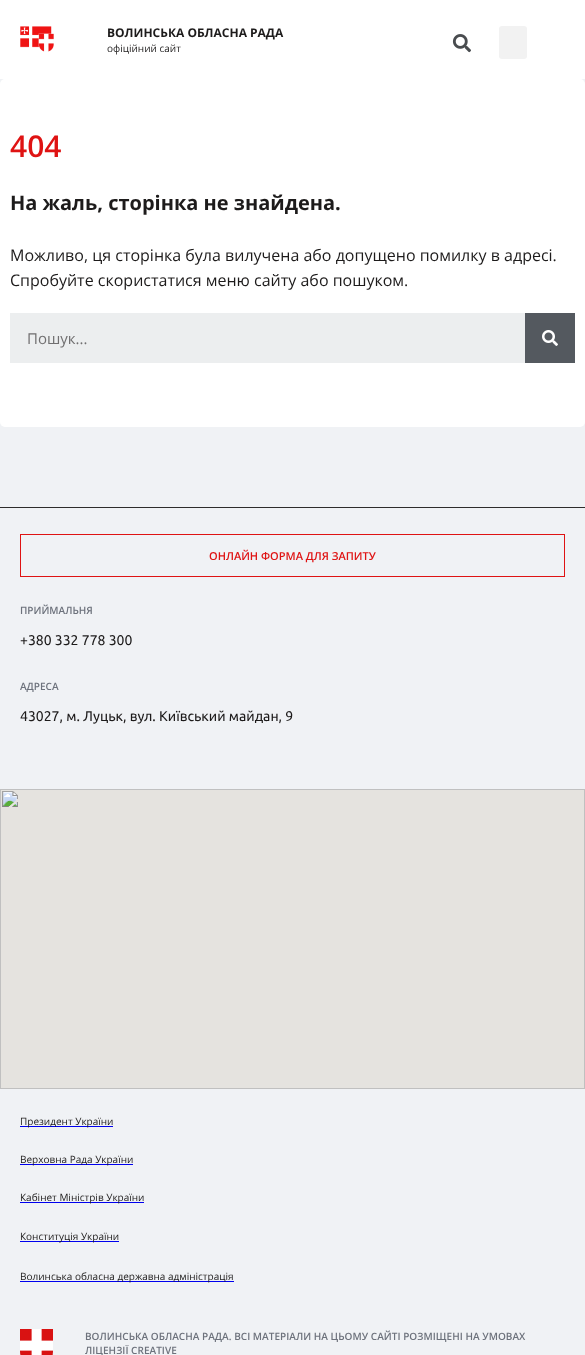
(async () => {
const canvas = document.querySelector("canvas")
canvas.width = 585
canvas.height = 1355
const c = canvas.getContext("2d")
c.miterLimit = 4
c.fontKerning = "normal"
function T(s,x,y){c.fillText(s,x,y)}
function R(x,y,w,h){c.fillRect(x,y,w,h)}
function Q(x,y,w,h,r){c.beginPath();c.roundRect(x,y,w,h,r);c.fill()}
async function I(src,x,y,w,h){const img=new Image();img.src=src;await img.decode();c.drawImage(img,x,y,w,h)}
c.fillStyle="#f0f2f5"
R(0,0,585,1355)
c.fillStyle="#fff"
R(0,0,585,79)
await I("1.png",20,26,34,26)
c.font="bold 12px Open Sans"
c.fillStyle="#1d1b1b"
T("ВОЛИНСЬКА ОБЛАСНА РАДА",107,37)
c.font="10px Open Sans"
T("офіційний сайт",107,52)
await I("2.png",452,34,19,19)
c.fillStyle="#f2f2f2"
Q(499,26,28,33,3)
c.fillStyle="#fff"
Q(0,79,585,348,5)
c.font="600 30px Open Sans"
c.fillStyle="#df1313"
T("404",10,157)
c.font="bold 20px Open Sans"
c.fillStyle="#1d1b1b"
T("На жаль, сторінка не знайдена.",10,210)
c.font="16px Open Sans"
T("Можливо, ця сторінка була вилучена або допущено помилку в адресі.",10,261)
T("Спробуйте скористатися меню сайту або пошуком.",10,286)
c.fillStyle="#eceeef"
R(10,313,515,50)
c.font="15px Open Sans"
c.fillStyle="#706f70"
T("Пошук...",27,344)
c.fillStyle="#54595f"
R(525,313,50,50)
await I("3.png",542,330,16,16)
c.fillStyle="#2e2c2c"
R(0,507,585,1)
c.strokeStyle="#df1313"
c.strokeRect(20.5,534.5,544,42)
c.font="600 11px Open Sans"
c.fillStyle="#df1313"
T("ОНЛАЙН ФОРМА ДЛЯ ЗАПИТУ",209,560)
c.font="600 10px Open Sans"
c.fillStyle="#6d727c"
T("ПРИЙМАЛЬНЯ",20,614)
c.font="14px Ubuntu"
c.fillStyle="#1d1b1b"
T("+380 332 778 300",20,645)
c.font="600 10px Open Sans"
c.fillStyle="#6d727c"
T("АДРЕСА",20,690)
c.font="14px Ubuntu"
c.fillStyle="#1d1b1b"
T("43027, м. Луцьк, вул. Київський майдан, 9",20,721)
await I("4.png",0,789,585,300)
c.fillStyle="#00e"
R(20,1126,93,1)
c.font="10px Open Sans"
c.fillStyle="#1d1b1b"
T("Президент України",20,1125)
c.fillStyle="#00e"
R(20,1164,113,1)
c.fillStyle="#1d1b1b"
T("Верховна Рада України",20,1163)
c.fillStyle="#00e"
R(20,1202,124,1)
c.fillStyle="#1d1b1b"
T("Кабінет Міністрів України",20,1201)
c.fillStyle="#00e"
R(20,1241,99,1)
c.fillStyle="#1d1b1b"
T("Конституція України",20,1240)
c.fillStyle="#00e"
R(20,1281,214,1)
c.fillStyle="#1d1b1b"
T("Волинська обласна державна адміністрація",20,1280)
await I("5.png",20,1329,33,26)
c.letterSpacing="0.03px"
c.font="600 10px Open Sans"
c.fillStyle="#6d727c"
T("ВОЛИНСЬКА ОБЛАСНА РАДА. ВСІ МАТЕРІАЛИ НА ЦЬОМУ САЙТІ РОЗМІЩЕНІ НА УМОВАХ",85,1340)
T("ЛІЦЕНЗІЇ CREATIVE",85,1354)
})()
